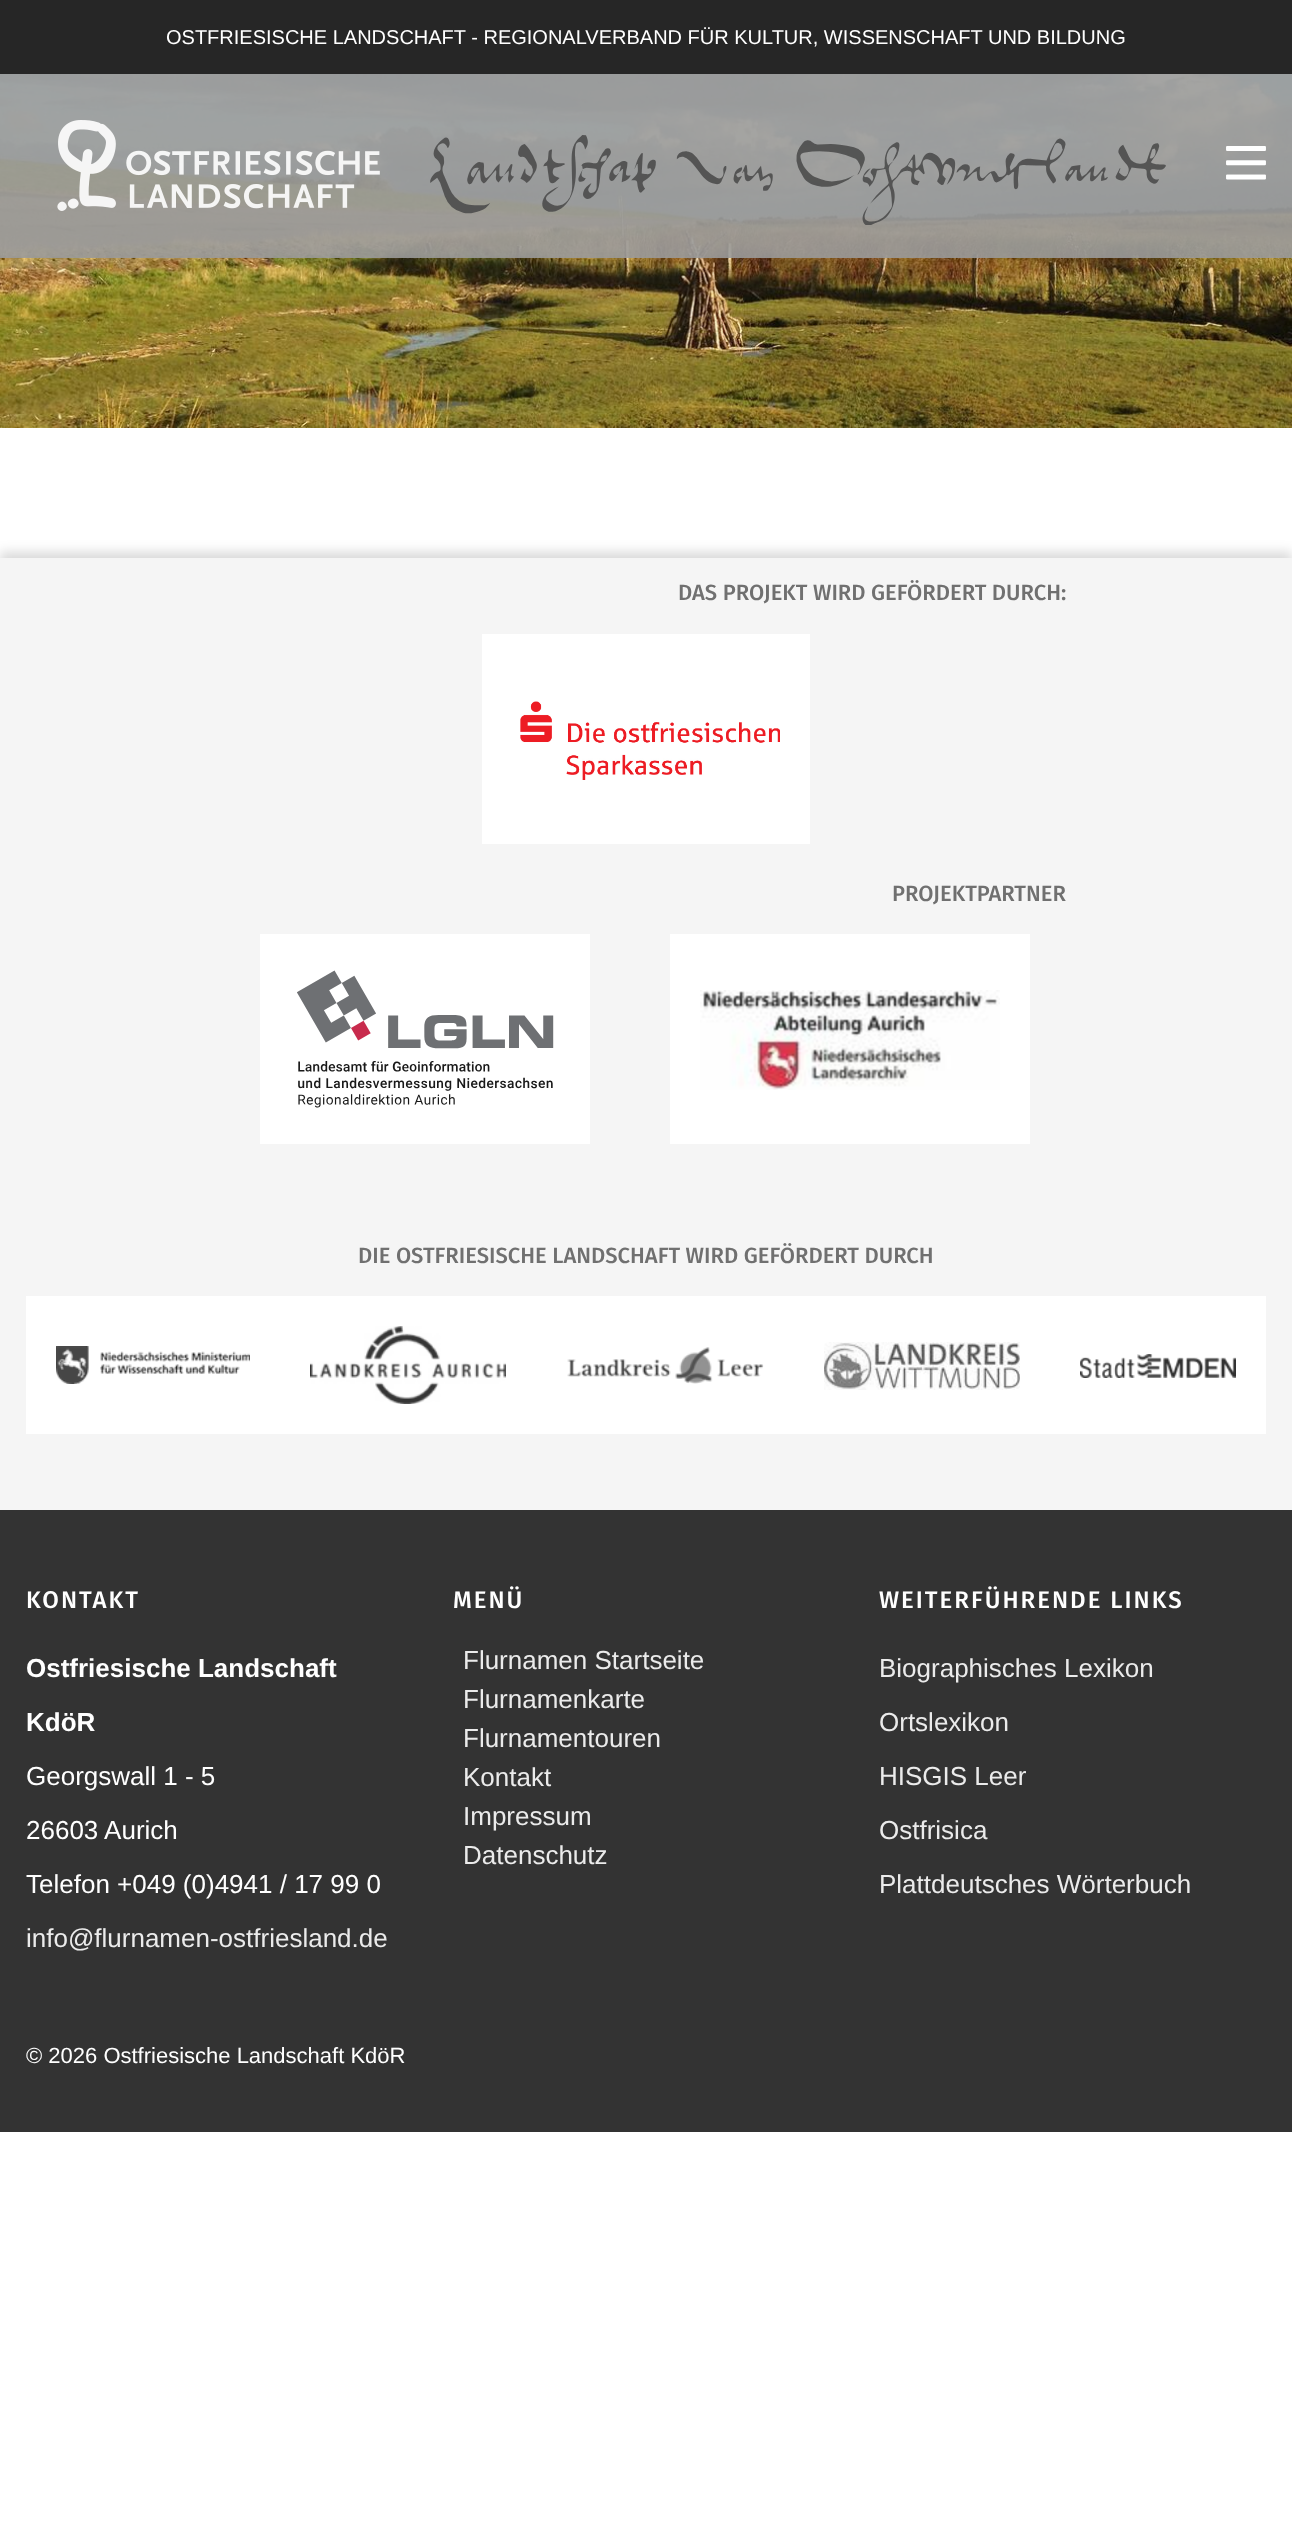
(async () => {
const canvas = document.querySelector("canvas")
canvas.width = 1292
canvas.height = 2544
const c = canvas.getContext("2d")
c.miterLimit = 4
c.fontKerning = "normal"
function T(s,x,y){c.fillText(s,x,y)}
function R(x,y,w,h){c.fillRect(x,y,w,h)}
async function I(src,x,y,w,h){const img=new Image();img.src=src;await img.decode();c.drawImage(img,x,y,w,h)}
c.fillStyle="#fff"
R(0,0,1292,2544)
c.fillStyle="#262626"
R(0,0,1292,74)
c.font="20px Liberation Sans"
c.fillStyle="#fff"
T("OSTFRIESISCHE LANDSCHAFT - REGIONALVERBAND FÜR KULTUR, WISSENSCHAFT UND BILDUNG",166,44)
await I("4.png",0,74,1292,354)
c.fillStyle="#9a9a9ae6"
R(0,74,1292,184)
await I("1.png",57,120,323,91)
await I("2.png",430,135,736,90)
await I("3.png",1226,146,40,34)
c.fillStyle="#00000026"
c.filter="blur(6px)"
c.beginPath()
c.rect(0,552,1292,664)
c.fill()
c.filter="none"
c.fillStyle="#f5f5f5"
R(0,558,1292,952)
c.font="500 22px Fira Sans"
c.fillStyle="#707070"
T("DAS PROJEKT WIRD GEFÖRDERT DURCH:",678,600)
c.fillStyle="#fff"
R(482,634,328,210)
await I("5.png",520,701,260,79)
c.fillStyle="#707070"
T("PROJEKTPARTNER",892,901)
c.fillStyle="#fff"
R(260,934,330,210)
await I("6.png",297,970,257,138)
R(670,934,360,210)
await I("7.png",700,990,300,100)
c.fillStyle="#707070"
T("DIE OSTFRIESISCHE LANDSCHAFT WIRD GEFÖRDERT DURCH",358,1263)
c.fillStyle="#fff"
R(26,1296,1240,138)
await I("8.png",56,1346,194,38)
await I("9.png",310,1326,196,78)
await I("10.png",567,1347,197,37)
await I("11.png",824,1342,196,48)
await I("12.png",1080,1354,156,24)
c.fillStyle="#333"
R(0,1510,1292,622)
c.letterSpacing="2px"
c.font="500 24px Fira Sans"
c.fillStyle="#fff"
T("KONTAKT",26,1608)
c.letterSpacing="0px"
c.font="bold 26px Liberation Sans"
T("Ostfriesische Landschaft",26,1677)
T("KdöR",26,1731)
c.font="26px Liberation Sans"
T("Georgswall 1 - 5",26,1785)
T("26603 Aurich",26,1839)
T("Telefon +049 (0)4941 / 17 99 0",26,1893)
c.fillStyle="#ebebeb"
T("info@flurnamen-ostfriesland.de",26,1947)
c.letterSpacing="2px"
c.font="500 24px Fira Sans"
c.fillStyle="#fff"
T("MENÜ",453,1608)
c.letterSpacing="0px"
c.font="26px Liberation Sans"
c.fillStyle="#ebebeb"
T("Flurnamen Startseite",463,1669)
T("Flurnamenkarte",463,1708)
T("Flurnamentouren",463,1747)
T("Kontakt",463,1786)
T("Impressum",463,1825)
T("Datenschutz",463,1864)
c.letterSpacing="2px"
c.font="500 24px Fira Sans"
c.fillStyle="#fff"
T("WEITERFÜHRENDE LINKS",879,1608)
c.letterSpacing="0px"
c.font="26px Liberation Sans"
c.fillStyle="#ebebeb"
T("Biographisches Lexikon",879,1677)
T("Ortslexikon",879,1731)
T("HISGIS Leer",879,1785)
T("Ostfrisica",879,1839)
T("Plattdeutsches Wörterbuch",879,1893)
c.font="22px Liberation Sans"
c.fillStyle="#fff"
T("© 2026 Ostfriesische Landschaft KdöR",26,2063)
})()
